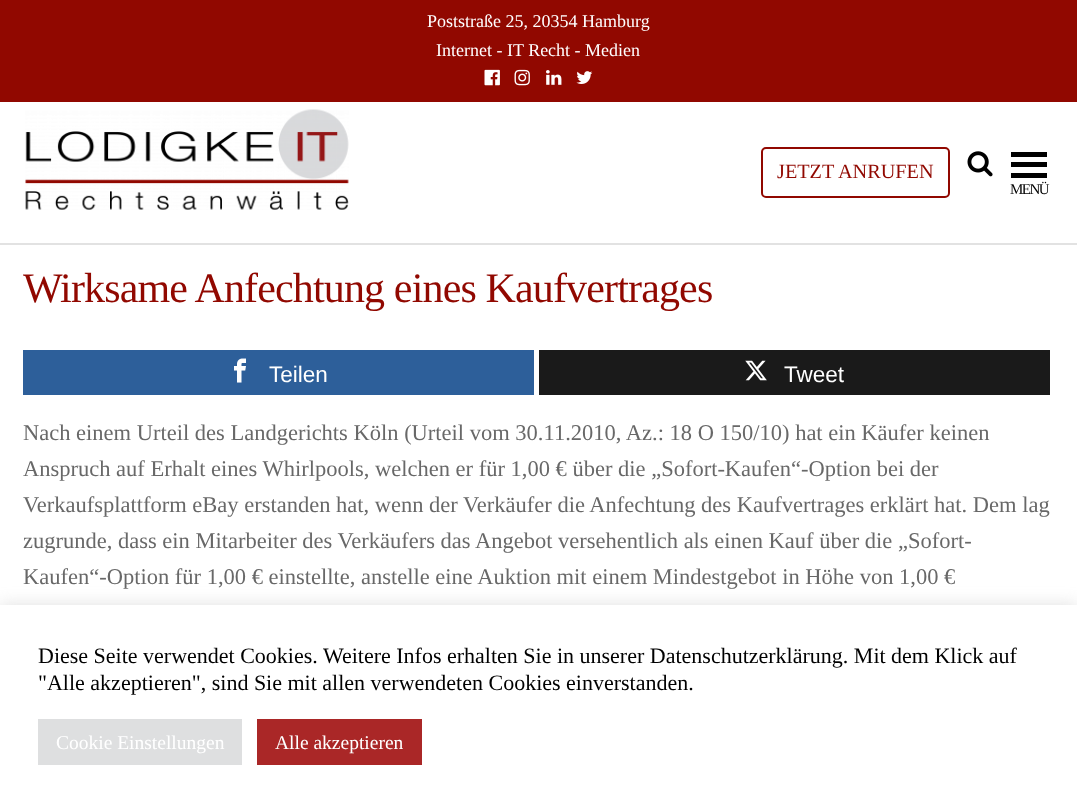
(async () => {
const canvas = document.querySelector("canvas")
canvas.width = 1077
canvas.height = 810
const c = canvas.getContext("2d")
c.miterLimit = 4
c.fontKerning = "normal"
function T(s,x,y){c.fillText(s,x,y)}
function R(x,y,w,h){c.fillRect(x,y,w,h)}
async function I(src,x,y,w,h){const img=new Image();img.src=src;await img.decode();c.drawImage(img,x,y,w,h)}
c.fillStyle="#fff"
R(0,0,1077,810)
c.fillStyle="#910800"
R(0,0,1077,102)
c.font="18px Liberation Serif"
c.fillStyle="#fff"
T("Poststraße 25, 20354 Hamburg",427,27)
T("Internet - IT Recht - Medien",436,56)
await I("1.png",484,69,16,17)
await I("2.png",514,69,16,17)
await I("3.png",546,70,16,15)
await I("4.png",576,71,17,13)
c.fillStyle="#e2e2e2"
R(0,243,1077,2)
await I("5.png",25,109,324,101)
c.beginPath()
c.roundRect(762,148,187,49,4)
c.strokeStyle="#910800"
c.lineWidth=2
c.stroke()
c.font="20.25px Liberation Serif"
c.fillStyle="#910800"
T("JETZT ANRUFEN",777,178)
await I("6.png",967,151,26,26)
c.fillStyle="#000"
R(1011,152,36,5)
R(1011,162,36,5)
R(1011,173,36,5)
c.letterSpacing="-1.5px"
c.font="15px Liberation Serif"
T("MENÜ",1010,194)
c.letterSpacing="-0.85px"
c.font="42px Liberation Serif"
c.fillStyle="#910800"
T("Wirksame Anfechtung eines Kaufvertrages",23,302)
c.fillStyle="#2d5f9a"
R(23,350,511,45)
await I("7.png",234,358,12,25)
c.letterSpacing="0px"
c.font="22.5px Liberation Sans"
c.fillStyle="#fff"
T("Teilen",269,382)
c.fillStyle="#1a1a1a"
R(539,350,511,45)
await I("8.png",745,360,22,21)
c.fillStyle="#fff"
T("Tweet",784,382)
c.font="22.5px Liberation Serif"
c.fillStyle="#686868"
T("Nach einem Urteil des Landgerichts Köln (Urteil vom 30.11.2010, Az.: 18 O 150/10) hat ein Käufer keinen",23,440)
T("Anspruch auf Erhalt eines Whirlpools, welchen er für 1,00 € über die „Sofort-Kaufen“-Option bei der",23,476)
T("Verkaufsplattform eBay erstanden hat, wenn der Verkäufer die Anfechtung des Kaufvertrages erklärt hat. Dem lag",23,512)
T("zugrunde, dass ein Mitarbeiter des Verkäufers das Angebot versehentlich als einen Kauf über die „Sofort-",23,548)
T("Kaufen“-Option für 1,00 € einstellte, anstelle eine Auktion mit einem Mindestgebot in Höhe von 1,00 €",23,584)
c.fillStyle="#acabab4d"
c.filter="blur(7.5px)"
c.beginPath()
c.rect(0,603,1077,206)
c.fill()
c.filter="none"
c.fillStyle="#fff"
R(0,605,1077,205)
c.font="22px Liberation Serif"
c.fillStyle="#000"
T("Diese Seite verwendet Cookies. Weitere Infos erhalten Sie in unserer Datenschutzerklärung. Mit dem Klick auf",38,663)
T("\"Alle akzeptieren\", sind Sie mit allen verwendeten Cookies einverstanden.",38,690)
c.fillStyle="#dedfe0"
R(38,719,204,46)
c.font="19.5px Liberation Serif"
c.fillStyle="#fff"
T("Cookie Einstellungen",56,749)
c.fillStyle="#aa2727"
R(257,719,165,46)
c.fillStyle="#fff"
T("Alle akzeptieren",275,749)
})()
